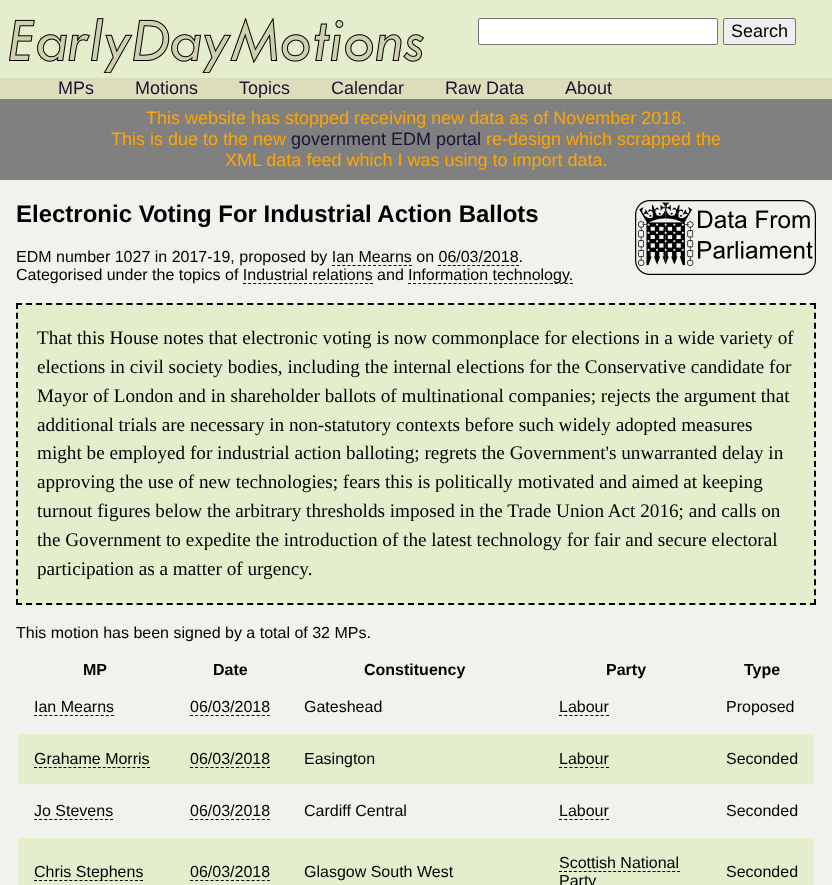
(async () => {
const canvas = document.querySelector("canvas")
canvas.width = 832
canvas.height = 885
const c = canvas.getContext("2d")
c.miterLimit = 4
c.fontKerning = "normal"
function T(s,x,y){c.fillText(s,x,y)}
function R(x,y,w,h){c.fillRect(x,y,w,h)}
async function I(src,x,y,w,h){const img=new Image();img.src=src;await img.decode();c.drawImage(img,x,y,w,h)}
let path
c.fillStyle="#f1f1ed"
R(0,0,832,885)
c.fillStyle="#e5eecc"
R(0,0,832,78)
await I("1.png",9,18,415,55)
c.fillStyle="#fff"
c.beginPath()
c.roundRect(478.5,18.5,239,26,1.5)
c.fill()
c.strokeStyle="#767676"
c.stroke()
c.fillStyle="#efefef"
c.beginPath()
c.roundRect(723.5,18.5,72,26,1.5)
c.fill()
c.stroke()
c.font="18px Liberation Sans"
c.fillStyle="#000"
T("Search",731,37)
c.fillStyle="#ddb"
R(0,78,832,21)
c.fillStyle="#1a1133"
T("MPs",58,94)
T("Motions",135,94)
T("Topics",239,94)
T("Calendar",331,94)
T("Raw Data",445,94)
T("About",565,94)
c.fillStyle="#808080"
R(0,99,832,81)
c.fillStyle="#ffa500"
T("This website has stopped receiving new data as of November 2018.",146,124)
T("This is due to the new",111,145)
c.fillStyle="#1a1133"
T("government EDM portal",291,145)
c.fillStyle="#ffa500"
T("re-design which scrapped the",486,145)
T("XML data feed which I was using to import data.",225,166)
c.font="bold 24px Liberation Sans"
c.fillStyle="#000"
T("Electronic Voting For Industrial Action Ballots",16,222)
await I("2.png",635,200,181,75)
c.font="16px Liberation Sans"
T("EDM number 1027 in 2017-19, proposed by Ian Mearns on 06/03/2018.",16,262)
path = new Path2D("M332 265.5h80")
c.strokeStyle="#000"
c.setLineDash([3,2.13])
c.stroke(path)
path = new Path2D("M438 265.5h81")
c.setLineDash([3,1.88])
c.stroke(path)
T("Categorised under the topics of Industrial relations and",16,280)
path = new Path2D("M408 283.5h165")
c.setLineDash([3,2.06])
c.stroke(path)
T("Information technology.",408,280)
path = new Path2D("M243 283.5h130")
c.setLineDash([3,2.08])
c.stroke(path)
c.fillStyle="#e5eecc"
R(16,303,800,302)
path = new Path2D("M16 304h800")
c.lineWidth=2
c.setLineDash([6,4.05])
c.stroke(path)
path = new Path2D("M815 303v302")
c.setLineDash([6,3.87])
c.stroke(path)
path = new Path2D("M16 604h800")
c.setLineDash([6,4.05])
c.stroke(path)
path = new Path2D("M17 303v302")
c.setLineDash([6,3.87])
c.stroke(path)
c.font="19.2px Liberation Serif"
c.fillStyle="#000"
T("That this House notes that electronic voting is now commonplace for elections in a wide variety of",37,344)
T("elections in civil society bodies, including the internal elections for the Conservative candidate for",37,373)
T("Mayor of London and in shareholder ballots of multinational companies; rejects the argument that",37,402)
T("additional trials are necessary in non-statutory contexts before such widely adopted measures",37,431)
T("might be employed for industrial action balloting; regrets the Government's unwarranted delay in",37,459)
T("approving the use of new technologies; fears this is politically motivated and aimed at keeping",37,488)
T("turnout figures below the arbitrary thresholds imposed in the Trade Union Act 2016; and calls on",37,517)
T("the Government to expedite the introduction of the latest technology for fair and secure electoral",37,546)
T("participation as a matter of urgency.",37,575)
c.font="16px Liberation Sans"
T("This motion has been signed by a total of 32 MPs.",16,638)
c.font="bold 16px Liberation Sans"
T("MP",83,675)
T("Date",213,675)
T("Constituency",364,675)
T("Party",606,675)
T("Type",744,675)
c.font="16px Liberation Sans"
T("Ian Mearns",34,712)
path = new Path2D("M34 715.5h80")
c.lineWidth=1
c.setLineDash([3,2.13])
c.stroke(path)
T("06/03/2018",190,712)
path = new Path2D("M190 715.5h80")
c.stroke(path)
T("Gateshead",304,712)
T("Labour",559,712)
path = new Path2D("M559 715.5h50")
c.setLineDash([3,2.22])
c.stroke(path)
T("Proposed",726,712)
c.fillStyle="#e5eecc"
R(18,734,796,50)
c.fillStyle="#000"
T("Grahame Morris",34,764)
path = new Path2D("M34 767.5h116")
c.setLineDash([3,1.91])
c.stroke(path)
T("06/03/2018",190,764)
path = new Path2D("M190 767.5h80")
c.setLineDash([3,2.13])
c.stroke(path)
T("Easington",304,764)
T("Labour",559,764)
path = new Path2D("M559 767.5h50")
c.setLineDash([3,2.22])
c.stroke(path)
T("Seconded",726,764)
T("Jo Stevens",34,816)
path = new Path2D("M34 819.5h79")
c.setLineDash([3,2.07])
c.stroke(path)
T("06/03/2018",190,816)
path = new Path2D("M190 819.5h80")
c.setLineDash([3,2.13])
c.stroke(path)
T("Cardiff Central",304,816)
T("Labour",559,816)
path = new Path2D("M559 819.5h50")
c.setLineDash([3,2.22])
c.stroke(path)
T("Seconded",726,816)
c.fillStyle="#e5eecc"
R(18,838,796,47)
path = new Path2D("M34 880.5h109")
c.setLineDash([3,2.05])
c.stroke(path)
c.fillStyle="#000"
T("Chris Stephens",34,877)
T("06/03/2018",190,877)
path = new Path2D("M190 880.5h80")
c.setLineDash([3,2.13])
c.stroke(path)
T("Glasgow South West",304,877)
T("Scottish National",559,868)
T("Party",559,886)
path = new Path2D("M559 871.5h121")
c.setLineDash([3,1.92])
c.stroke(path)
T("Seconded",726,877)
})()
